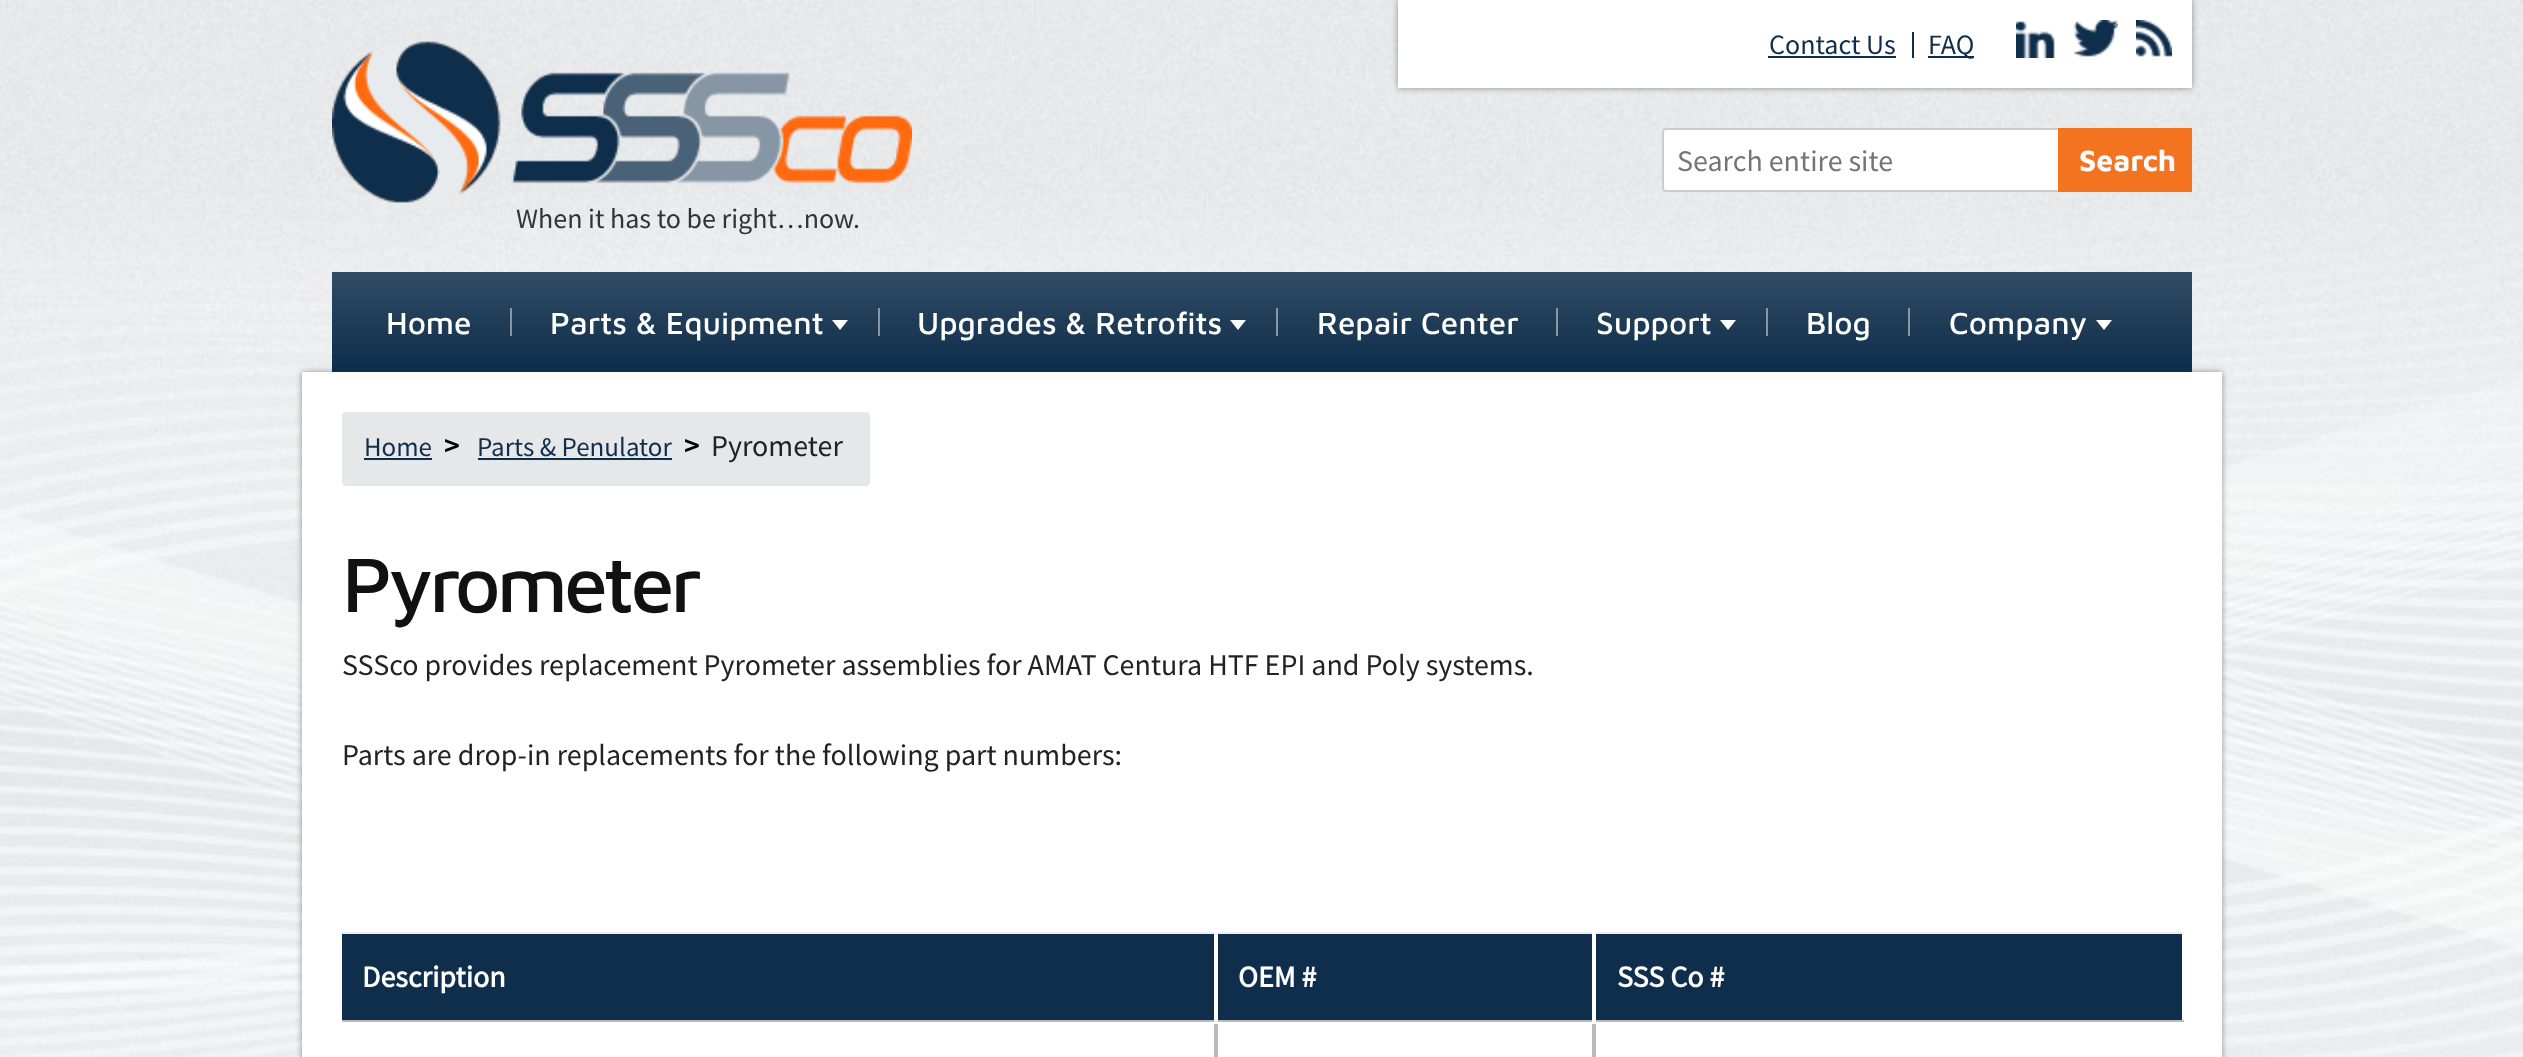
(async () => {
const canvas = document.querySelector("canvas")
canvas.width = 2523
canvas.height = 1057
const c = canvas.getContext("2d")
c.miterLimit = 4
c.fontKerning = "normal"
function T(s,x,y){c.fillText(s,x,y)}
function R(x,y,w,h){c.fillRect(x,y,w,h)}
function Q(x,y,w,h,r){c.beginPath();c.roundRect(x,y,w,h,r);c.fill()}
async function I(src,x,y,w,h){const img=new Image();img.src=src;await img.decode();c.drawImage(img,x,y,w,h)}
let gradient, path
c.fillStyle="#fff"
R(0,0,2523,1057)
await I("1.png",0,0,2523,1057)
c.fillStyle="#00000066"
c.filter="blur(3px)"
c.beginPath()
c.rect(1398,0,794,88)
c.fill()
c.filter="none"
c.fillStyle="#fff"
R(1398,0,794,88)
c.font="28px Source Sans Pro"
c.fillStyle="#0e2e4c"
T("Contact Us",1769,54)
R(1768,56,128,2)
R(1912,32,2,26)
R(1928,56,46,2)
T("FAQ",1928,54)
await I("2.png",2016,21,39,37)
await I("3.png",2074,20,44,37)
await I("4.png",2136,20,36,37)
c.fillStyle="#fff"
c.beginPath()
c.roundRect(1663,129,398,62,3)
c.fill()
c.strokeStyle="#ccc"
c.lineWidth=2
c.stroke()
c.font="30px Source Sans Pro"
c.fillStyle="#757575"
T("Search entire site",1677,171)
c.fillStyle="#f47321"
R(2058,128,134,64)
c.font="bold 30px Maven Pro"
c.fillStyle="#fff"
T("Search",2079,171)
await I("5.png",332,40,580,166)
c.font="28px Source Sans Pro"
c.fillStyle="#333"
T("When it has to be right…now.",516,228)
c.fillStyle="#00000066"
c.filter="blur(3px)"
c.beginPath()
c.rect(302,372,1920,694)
c.fill()
c.filter="none"
gradient = c.createLinearGradient(1262,272,1262,372)
gradient.addColorStop(0,"#314c65")
gradient.addColorStop(.99,"#0e2d4a")
c.fillStyle = gradient
R(332,272,1860,100)
c.font="500 31.5px Maven Pro"
c.fillStyle="#fff"
T("Home",386,334)
c.fillStyle="#8696a5"
R(510,308,2,28)
c.fillStyle="#fff"
T("Parts & Equipment",550,334)
path = new Path2D("M832 320h16l-8 10z")
c.fill(path)
c.fillStyle="#8696a5"
R(878,308,2,28)
c.fillStyle="#fff"
T("Upgrades & Retrofits",917,334)
path = new Path2D("M1230 320h16l-8 10z")
c.fill(path)
c.fillStyle="#8696a5"
R(1276,308,2,28)
c.fillStyle="#fff"
T("Repair Center",1317,334)
c.fillStyle="#8696a5"
R(1556,308,2,28)
c.fillStyle="#fff"
T("Support",1596,334)
path = new Path2D("M1720 320h16l-8 10z")
c.fill(path)
c.fillStyle="#8696a5"
R(1766,308,2,28)
c.fillStyle="#fff"
T("Blog",1806,334)
c.fillStyle="#8696a5"
R(1908,308,2,28)
c.fillStyle="#fff"
T("Company",1949,334)
path = new Path2D("M2096 320h16l-8 10z")
c.fill(path)
R(302,372,1920,685)
c.fillStyle="#e5e7e8"
Q(342,412,528,74,4)
c.font="27px Source Sans Pro"
c.fillStyle="#0e2e4c"
T("Home",364,456)
R(364,458,68,2)
c.font="bold 30px Source Sans Pro"
c.fillStyle="#000"
T(">",444,456)
c.font="27px Source Sans Pro"
c.fillStyle="#0e2e4c"
T("Parts & Penulator",477,456)
R(478,458,194,2)
c.font="bold 30px Source Sans Pro"
c.fillStyle="#000"
T(">",684,456)
c.font="30px Source Sans Pro"
c.fillStyle="#222"
T("Pyrometer",711,456)
c.letterSpacing="-4px"
c.font="500 79.5px Maven Pro"
c.fillStyle="#111"
T("Pyrometer",342,612)
c.letterSpacing="0px"
c.font="30px Source Sans Pro"
c.fillStyle="#222"
T("SSSco provides replacement Pyrometer assemblies for AMAT Centura HTF EPI and Poly systems.",342,675)
T("Parts are drop-in replacements for the following part numbers:",342,765)
c.fillStyle="#0e2e4c"
R(342,934,872,86)
c.fillStyle="#eee"
R(342,932,1842,2)
c.fillStyle="#b8babb"
R(342,1020,1842,2)
R(1214,1020,4,37)
c.fillStyle="#fff"
R(1214,932,4,92)
c.font="bold 30px Source Sans Pro"
T("Description",362,987)
c.fillStyle="#0e2e4c"
R(1218,934,374,86)
c.fillStyle="#b8babb"
R(1592,1020,4,37)
c.fillStyle="#fff"
R(1592,932,4,92)
T("OEM #",1238,987)
c.fillStyle="#0e2e4c"
R(1596,934,586,86)
c.fillStyle="#fff"
T("SSS Co #",1617,987)
})()
